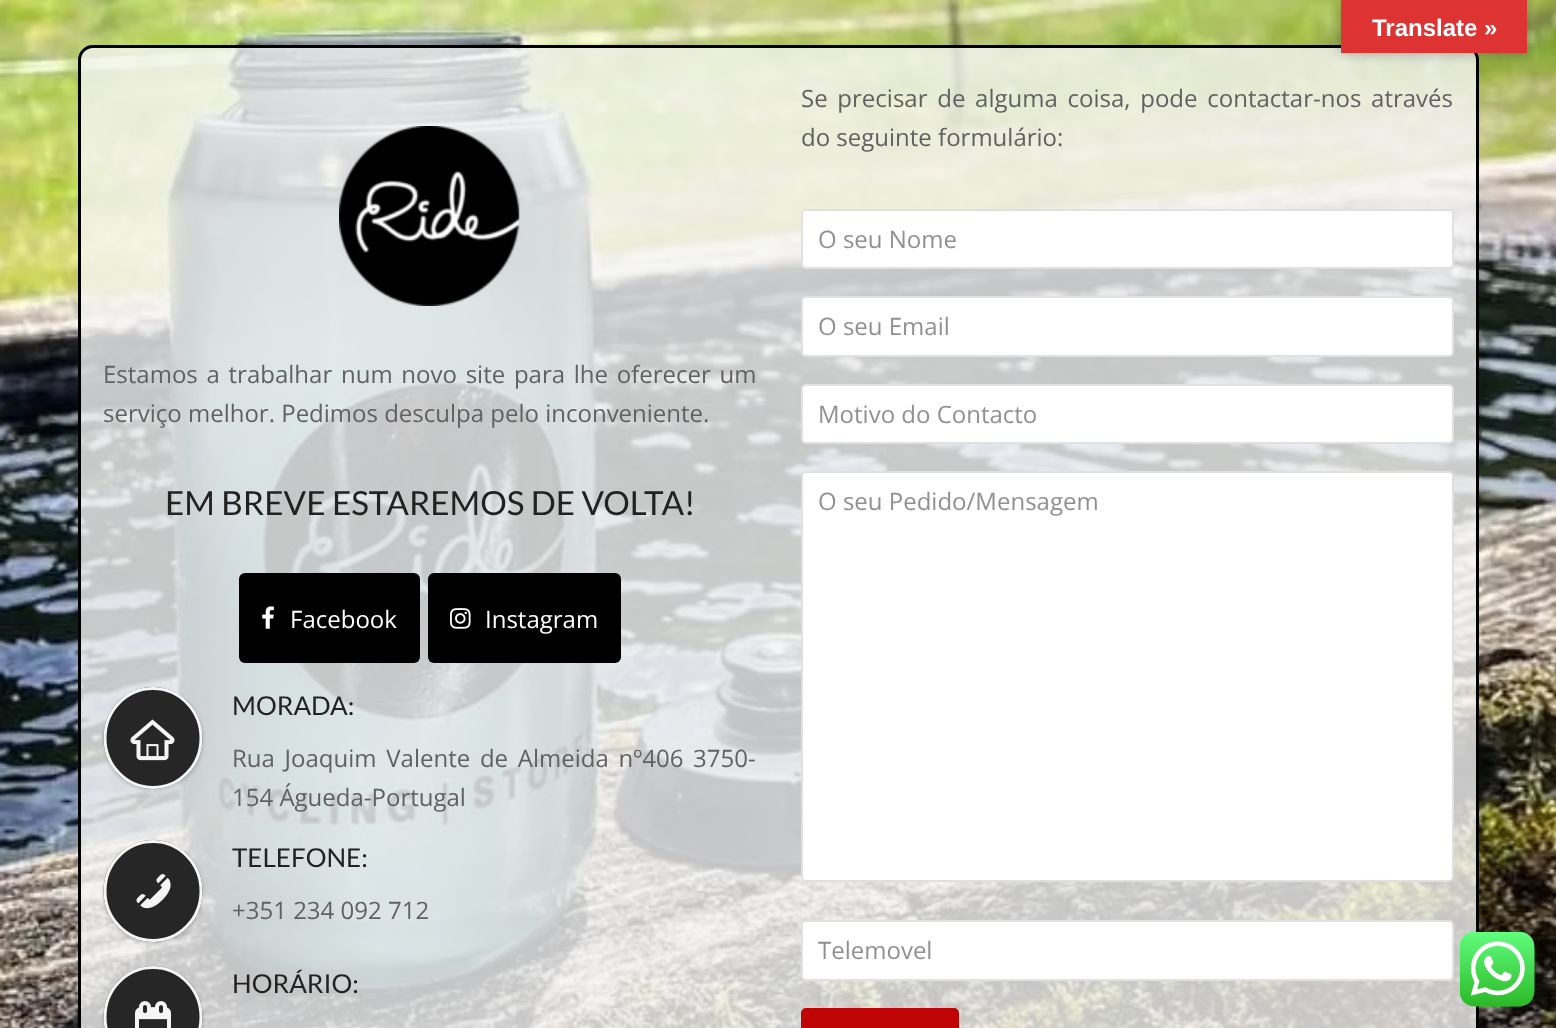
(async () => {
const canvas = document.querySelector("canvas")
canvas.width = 1556
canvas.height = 1028
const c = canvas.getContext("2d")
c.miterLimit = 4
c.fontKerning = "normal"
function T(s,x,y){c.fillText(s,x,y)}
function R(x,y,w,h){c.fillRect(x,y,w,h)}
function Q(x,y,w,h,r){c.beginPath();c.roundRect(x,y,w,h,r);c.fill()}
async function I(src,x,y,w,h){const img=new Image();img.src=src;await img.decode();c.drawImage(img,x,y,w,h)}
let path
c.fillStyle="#fff"
R(0,0,1556,1028)
await I("1.png",0,0,1556,1028)
c.fillStyle="#f5f5f5cc"
c.beginPath()
c.roundRect(79.5,46.5,1398,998,13.5)
c.fill()
c.strokeStyle="#000"
c.lineWidth=3
c.stroke()
c.fillStyle="#0000004d"
c.filter="blur(7px)"
c.beginPath()
c.rect(1341,0,186,53)
c.fill()
c.filter="none"
c.fillStyle="#d33"
R(1341,0,186,53)
c.font="bold 24px Liberation Sans"
c.fillStyle="#fff"
T("Translate »",1372,36)
await I("2.png",339,126,181,180)
c.wordSpacing="2.5px"
c.font="24px Open Sans"
c.fillStyle="#616161"
T("Estamos a trabalhar num novo site para lhe oferecer um",103,383)
c.wordSpacing="0px"
T("serviço melhor. Pedimos desculpa pelo inconveniente.",103,422)
c.font="33.25px Lato"
c.fillStyle="#222"
T("EM BREVE ESTAREMOS DE VOLTA!",165,515)
c.fillStyle="#000"
Q(239,573,181,90,6)
await I("3.png",262,606,12,23)
c.font="24px Open Sans"
c.fillStyle="#fff"
T("Facebook",290,628)
c.fillStyle="#000"
Q(428,573,193,90,6)
await I("4.png",450,608,21,21)
c.fillStyle="#fff"
T("Instagram",485,628)
c.fillStyle="#0000000f"
c.filter="blur(1.5px)"
c.beginPath()
c.roundRect(104,689,99,102,49.5)
c.fill()
c.filter="none"
c.fillStyle="#0000001a"
c.filter="blur(2px)"
c.beginPath()
c.roundRect(104,689,99,102,49.5)
c.fill()
c.filter="none"
c.fillStyle="#262626"
c.beginPath()
c.ellipse(153,738,49.5,51,0,0,7)
c.fill()
path = new Path2D("M153 688.5c26.5 0 48 22 48 49.5c0 27.5-21.5 49.5-48 49.5c-26.5 0-48-22-48-49.5c0-27.5 21.5-49.5 48-49.5z")
c.strokeStyle="#f5f5f5"
c.stroke(path)
await I("5.png",130,719,45,42)
c.font="26px Lato"
c.fillStyle="#222"
T("MORADA:",232,715)
c.wordSpacing="3.5px"
c.font="24px Open Sans"
c.fillStyle="#616161"
T("Rua Joaquim Valente de Almeida nº406 3750-",232,767)
c.wordSpacing="0px"
T("154 Águeda-Portugal",232,806)
c.fillStyle="#0000000f"
c.filter="blur(1.5px)"
c.beginPath()
c.roundRect(104,842,99,102,49.5)
c.fill()
c.filter="none"
c.fillStyle="#0000001a"
c.filter="blur(2px)"
c.beginPath()
c.roundRect(104,842,99,102,49.5)
c.fill()
c.filter="none"
c.fillStyle="#262626"
c.beginPath()
c.ellipse(153,891,49.5,51,0,0,7)
c.fill()
path = new Path2D("M153 841.5c26.5 0 48 22 48 49.5c0 27.5-21.5 49.5-48 49.5c-26.5 0-48-22-48-49.5c0-27.5 21.5-49.5 48-49.5z")
c.stroke(path)
await I("6.png",136,874,35,35)
c.font="26px Lato"
c.fillStyle="#222"
T("TELEFONE:",232,867)
c.font="24px Open Sans"
c.fillStyle="#616161"
T("+351 234 092 712",232,919)
c.fillStyle="#0000000f"
c.filter="blur(1.5px)"
c.beginPath()
c.roundRect(104,968,99,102,49.5)
c.fill()
c.filter="none"
c.fillStyle="#0000001a"
c.filter="blur(2px)"
c.beginPath()
c.roundRect(104,968,99,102,49.5)
c.fill()
c.filter="none"
c.fillStyle="#262626"
c.beginPath()
c.ellipse(153,1017,49.5,51,0,0,7)
c.fill()
path = new Path2D("M153 967.5c26.5 0 48 22 48 49.5c0 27.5-21.5 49.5-48 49.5c-26.5 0-48-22-48-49.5c0-27.5 21.5-49.5 48-49.5z")
c.stroke(path)
await I("7.png",135,1001,36,27)
c.font="26px Lato"
c.fillStyle="#222"
T("HORÁRIO:",232,993)
c.wordSpacing="3.5px"
c.font="24px Open Sans"
c.fillStyle="#616161"
T("Se precisar de alguma coisa, pode contactar-nos através",801,107)
c.wordSpacing="0px"
T("do seguinte formulário:",801,146)
c.fillStyle="#fff"
c.beginPath()
c.roundRect(802,210,651,58,4)
c.fill()
c.strokeStyle="#e1e1e1"
c.lineWidth=2
c.stroke()
c.fillStyle="#909090"
T("O seu Nome",818,248)
c.fillStyle="#fff"
c.beginPath()
c.roundRect(802,297,651,59,4)
c.fill()
c.stroke()
c.fillStyle="#909090"
T("O seu Email",818,335)
c.fillStyle="#fff"
c.beginPath()
c.roundRect(802,385,651,58,4)
c.fill()
c.stroke()
c.fillStyle="#909090"
T("Motivo do Contacto",818,423)
c.fillStyle="#fff"
c.beginPath()
c.roundRect(802,472,651,409,4)
c.fill()
c.strokeStyle="#e0e0e0"
c.stroke()
c.fillStyle="#909090"
T("O seu Pedido/Mensagem",818,510)
c.fillStyle="#fff"
c.beginPath()
c.roundRect(802,921,651,59,4)
c.fill()
c.strokeStyle="#e1e1e1"
c.stroke()
c.fillStyle="#909090"
T("Telemovel",818,959)
c.fillStyle="#bf0405"
Q(801,1008,158,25,5)
await I("8.png",1460,932,75,75)
})()
